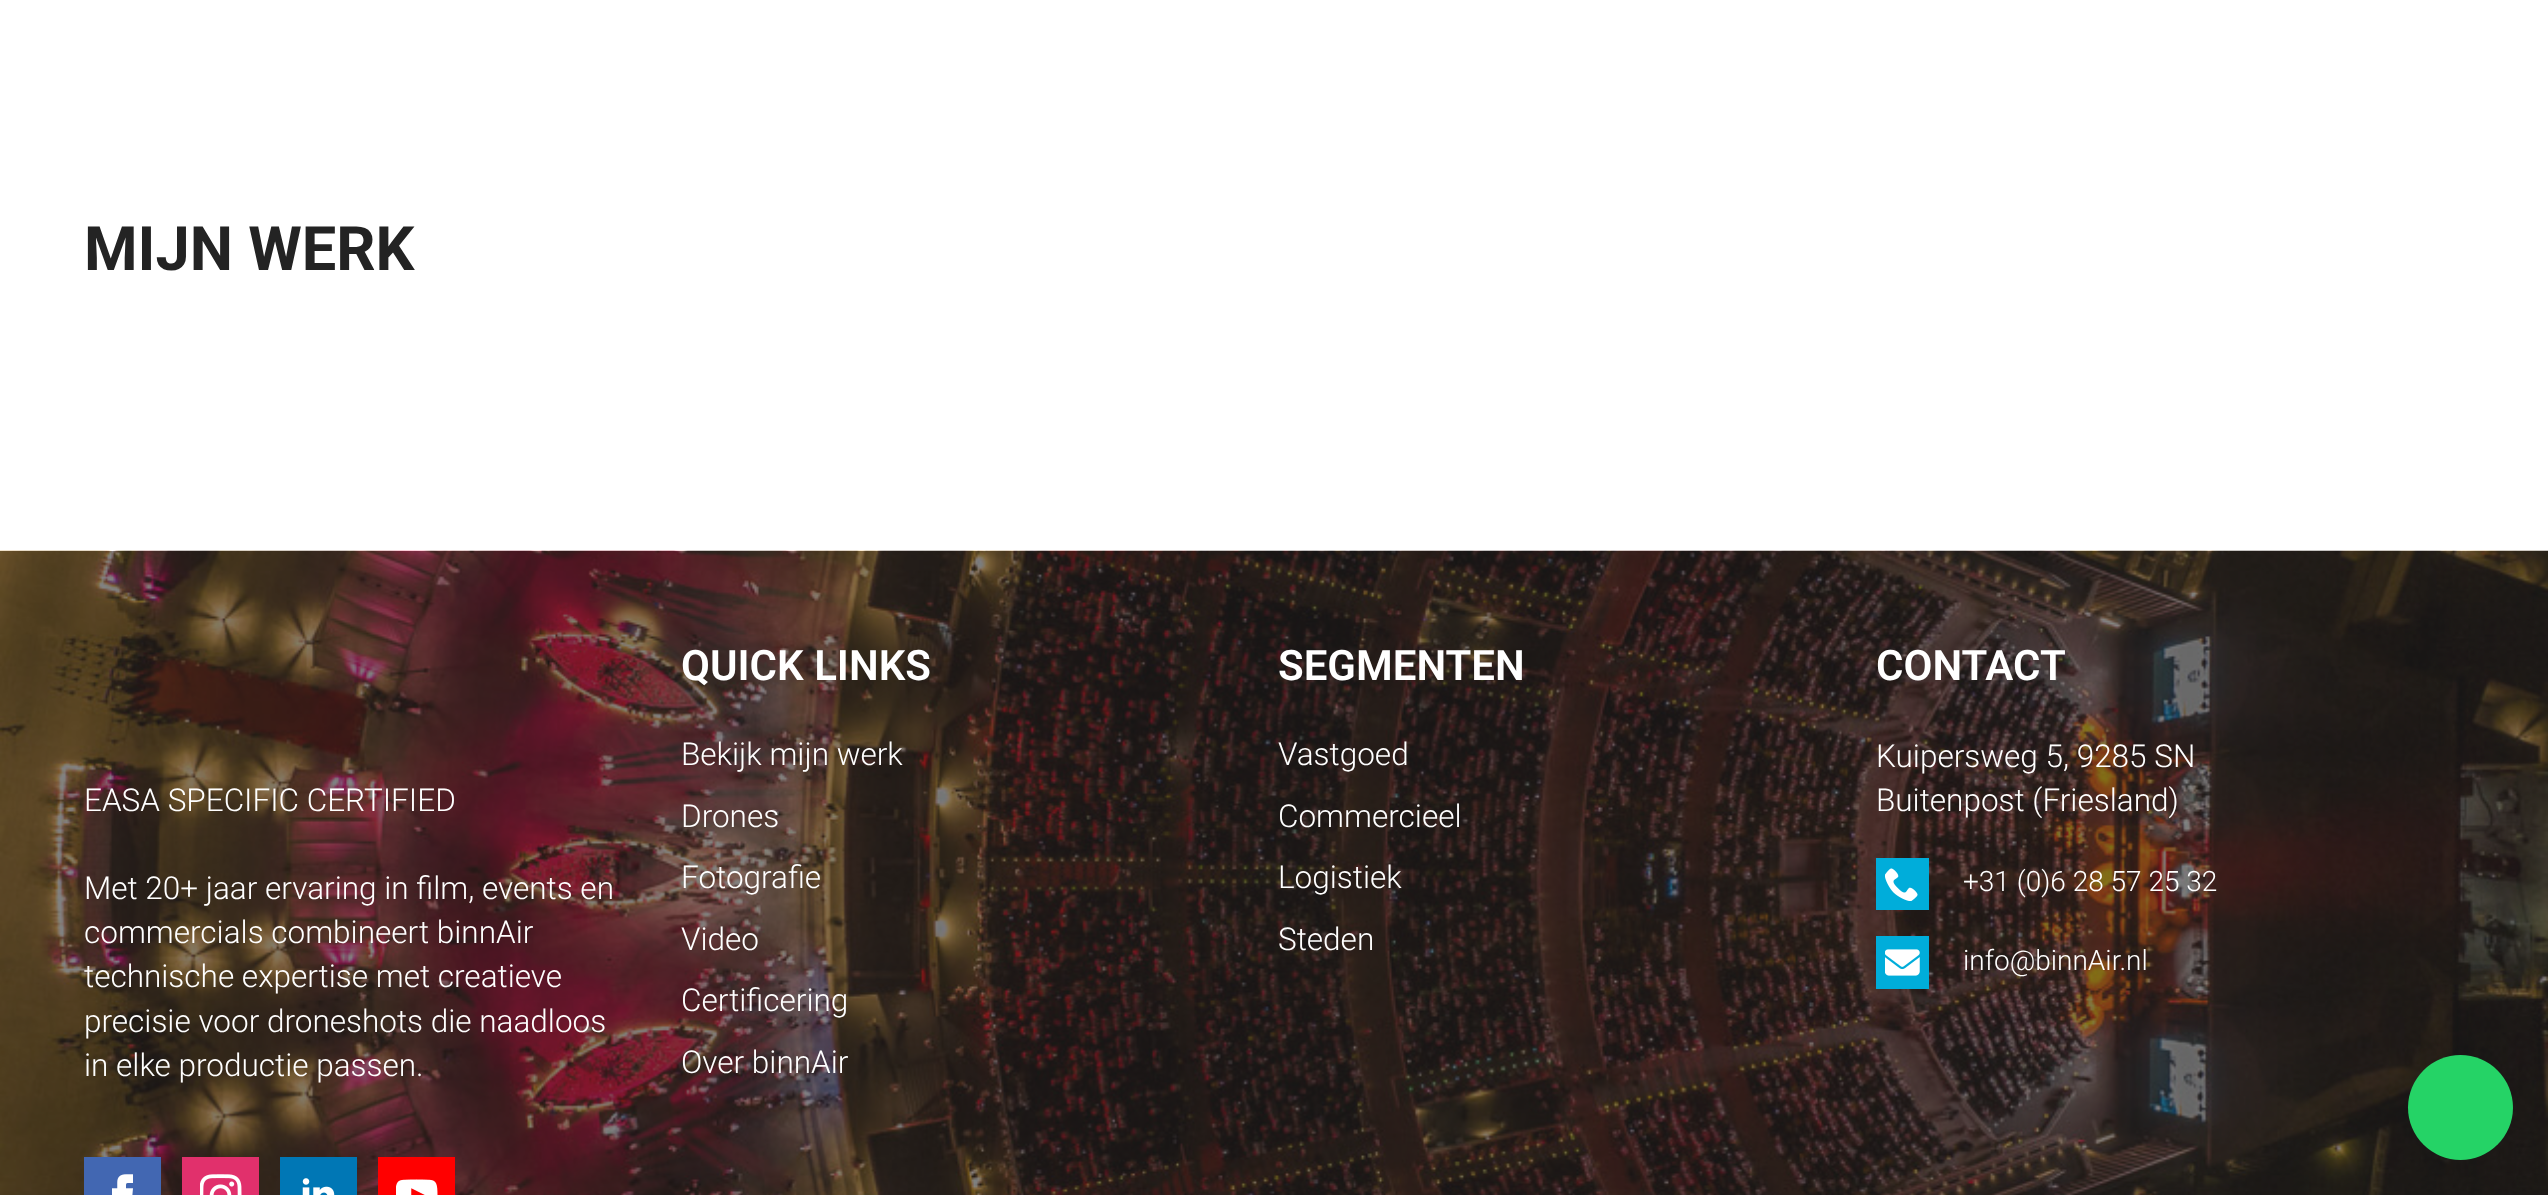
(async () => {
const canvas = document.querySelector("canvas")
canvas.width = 2548
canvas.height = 1195
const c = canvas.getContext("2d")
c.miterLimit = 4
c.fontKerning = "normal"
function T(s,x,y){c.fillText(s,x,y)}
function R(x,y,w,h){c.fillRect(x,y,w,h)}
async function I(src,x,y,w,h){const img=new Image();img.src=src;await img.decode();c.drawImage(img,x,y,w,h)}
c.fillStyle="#fff"
R(0,0,2548,1195)
c.font="bold 61.25px Roboto"
c.fillStyle="#232323"
T("MIJN WERK",84,270)
await I("1.png",0,550,2548,645)
c.font="300 31.5px Roboto"
c.fillStyle="#fff"
T("EASA SPECIFIC CERTIFIED",84,811)
T("Met 20+ jaar ervaring in film, events en",84,899)
T("commercials combineert binnAir",84,943)
T("technische expertise met creatieve",84,987)
T("precisie voor droneshots die naadloos",84,1032)
T("in elke productie passen.",84,1076)
c.fillStyle="#4267b2"
R(84,1157,77,38)
await I("2.png",112,1174,21,21)
c.fillStyle="#e1306c"
R(182,1157,77,38)
await I("3.png",200,1174,42,21)
c.fillStyle="#0077b5"
R(280,1157,77,38)
await I("4.png",302,1178,33,17)
c.fillStyle="#f00"
R(378,1157,77,38)
await I("5.png",396,1179,42,16)
c.font="600 42px Roboto"
c.fillStyle="#fff"
T("QUICK LINKS",681,680)
c.font="300 31.5px Roboto"
T("Bekijk mijn werk",681,765)
T("Drones",681,827)
T("Fotografie",681,888)
T("Video",681,950)
T("Certificering",681,1011)
T("Over binnAir",681,1073)
c.font="600 42px Roboto"
T("SEGMENTEN",1278,680)
c.font="300 31.5px Roboto"
T("Vastgoed",1278,765)
T("Commercieel",1278,827)
T("Logistiek",1278,888)
T("Steden",1278,950)
c.font="600 42px Roboto"
T("CONTACT",1876,680)
c.font="300 31.5px Roboto"
T("Kuipersweg 5, 9285 SN",1876,767)
T("Buitenpost (Friesland)",1876,811)
c.fillStyle="#00adda"
R(1876,858,53,52)
await I("6.png",1885,868,33,33)
c.font="300 28px Roboto"
c.fillStyle="#fff"
T("+31 (0)6 28 57 25 32",1963,891)
c.fillStyle="#00adda"
R(1876,936,53,53)
await I("7.png",1885,949,35,27)
c.fillStyle="#fff"
T("info@binnAir.nl",1963,970)
c.fillStyle="#25d366"
c.beginPath()
c.arc(2460.5,1107.5,52.5,0,7)
c.fill()
})()
